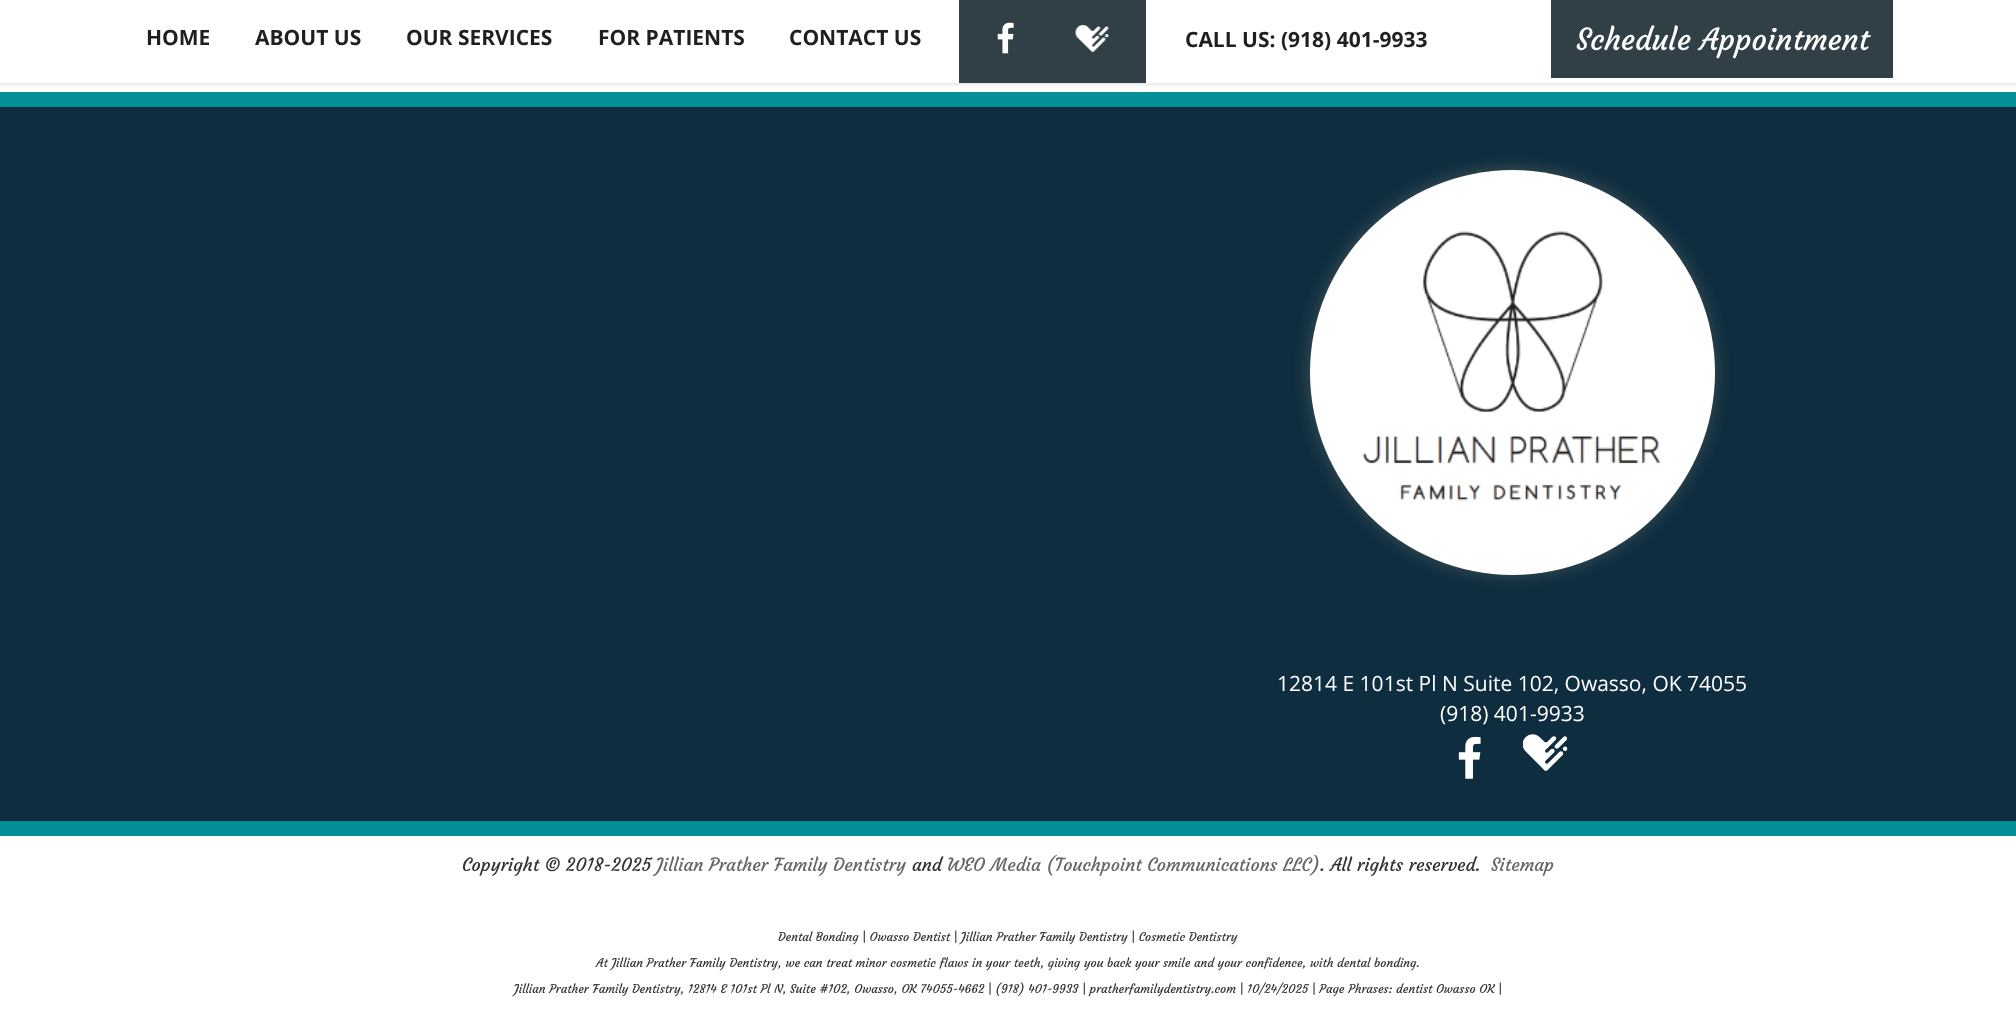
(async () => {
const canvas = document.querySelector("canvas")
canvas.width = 2016
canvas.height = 1028
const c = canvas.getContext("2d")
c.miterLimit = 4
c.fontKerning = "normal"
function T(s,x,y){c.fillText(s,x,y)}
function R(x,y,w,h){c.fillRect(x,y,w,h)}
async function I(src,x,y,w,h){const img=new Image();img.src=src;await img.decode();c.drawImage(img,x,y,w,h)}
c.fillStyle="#fff"
R(0,0,2016,1028)
c.fillStyle="#00000026"
c.filter="blur(2px)"
c.beginPath()
c.rect(0,2,2016,82)
c.fill()
c.filter="none"
c.fillStyle="#fff"
R(0,0,2016,83)
c.font="bold 21px Open Sans"
c.fillStyle="#1f1f1f"
T("HOME",146,45)
T("ABOUT US",255,45)
T("OUR SERVICES",406,45)
T("FOR PATIENTS",598,45)
T("CONTACT US",789,45)
c.fillStyle="#314047"
R(959,0,187,83)
await I("1.png",997,22,17,32)
await I("2.png",1075,25,34,27)
c.fillStyle="#1f1f1f"
T("CALL US: (918) 401-9933",1185,47)
c.fillStyle="#314047"
R(1551,0,342,78)
c.font="30px Courgette"
c.fillStyle="#fff"
T("Schedule Appointment",1576,50)
c.fillStyle="#048e98"
R(0,92,2016,15)
c.fillStyle="#0e2e3f"
R(0,107,2016,714)
c.fillStyle="#67676780"
c.filter="blur(7.5px)"
c.beginPath()
c.roundRect(1308,168,408,408,204)
c.fill()
c.filter="none"
c.fillStyle="#fff"
c.beginPath()
c.arc(1512.5,372.5,202.5,0,7)
c.fill()
await I("3.png",1362,231,299,270)
c.font="21px Open Sans"
T("12814 E 101st Pl N Suite 102, Owasso, OK 74055",1277,691)
T("(918) 401-9933",1440,721)
await I("4.png",1458,736,23,43)
await I("5.png",1523,734,45,37)
c.fillStyle="#048e98"
R(0,821,2016,15)
c.font="18px Courgette"
c.fillStyle="#333"
T("Copyright © 2018-2025",462,871)
c.fillStyle="#666"
T("Jillian Prather Family Dentistry",656,871)
c.fillStyle="#333"
T("and",912,871)
c.fillStyle="#666"
T("WEO Media (Touchpoint Communications LLC)",947,871)
c.fillStyle="#333"
T(". All rights reserved.",1320,871)
c.fillStyle="#666"
T("Sitemap",1491,871)
c.font="12px Courgette"
c.fillStyle="#333"
T("Dental Bonding | Owasso Dentist | Jillian Prather Family Dentistry | Cosmetic Dentistry",778,941)
T("At Jillian Prather Family Dentistry, we can treat minor cosmetic flaws in your teeth, giving you back your smile and your confidence, with dental bonding.",596,967)
T("Jillian Prather Family Dentistry, 12814 E 101st Pl N, Suite #102, Owasso, OK 74055-4662 | (918) 401-9933 | pratherfamilydentistry.com | 10/24/2025 | Page Phrases: dentist Owasso OK |",514,993)
})()
